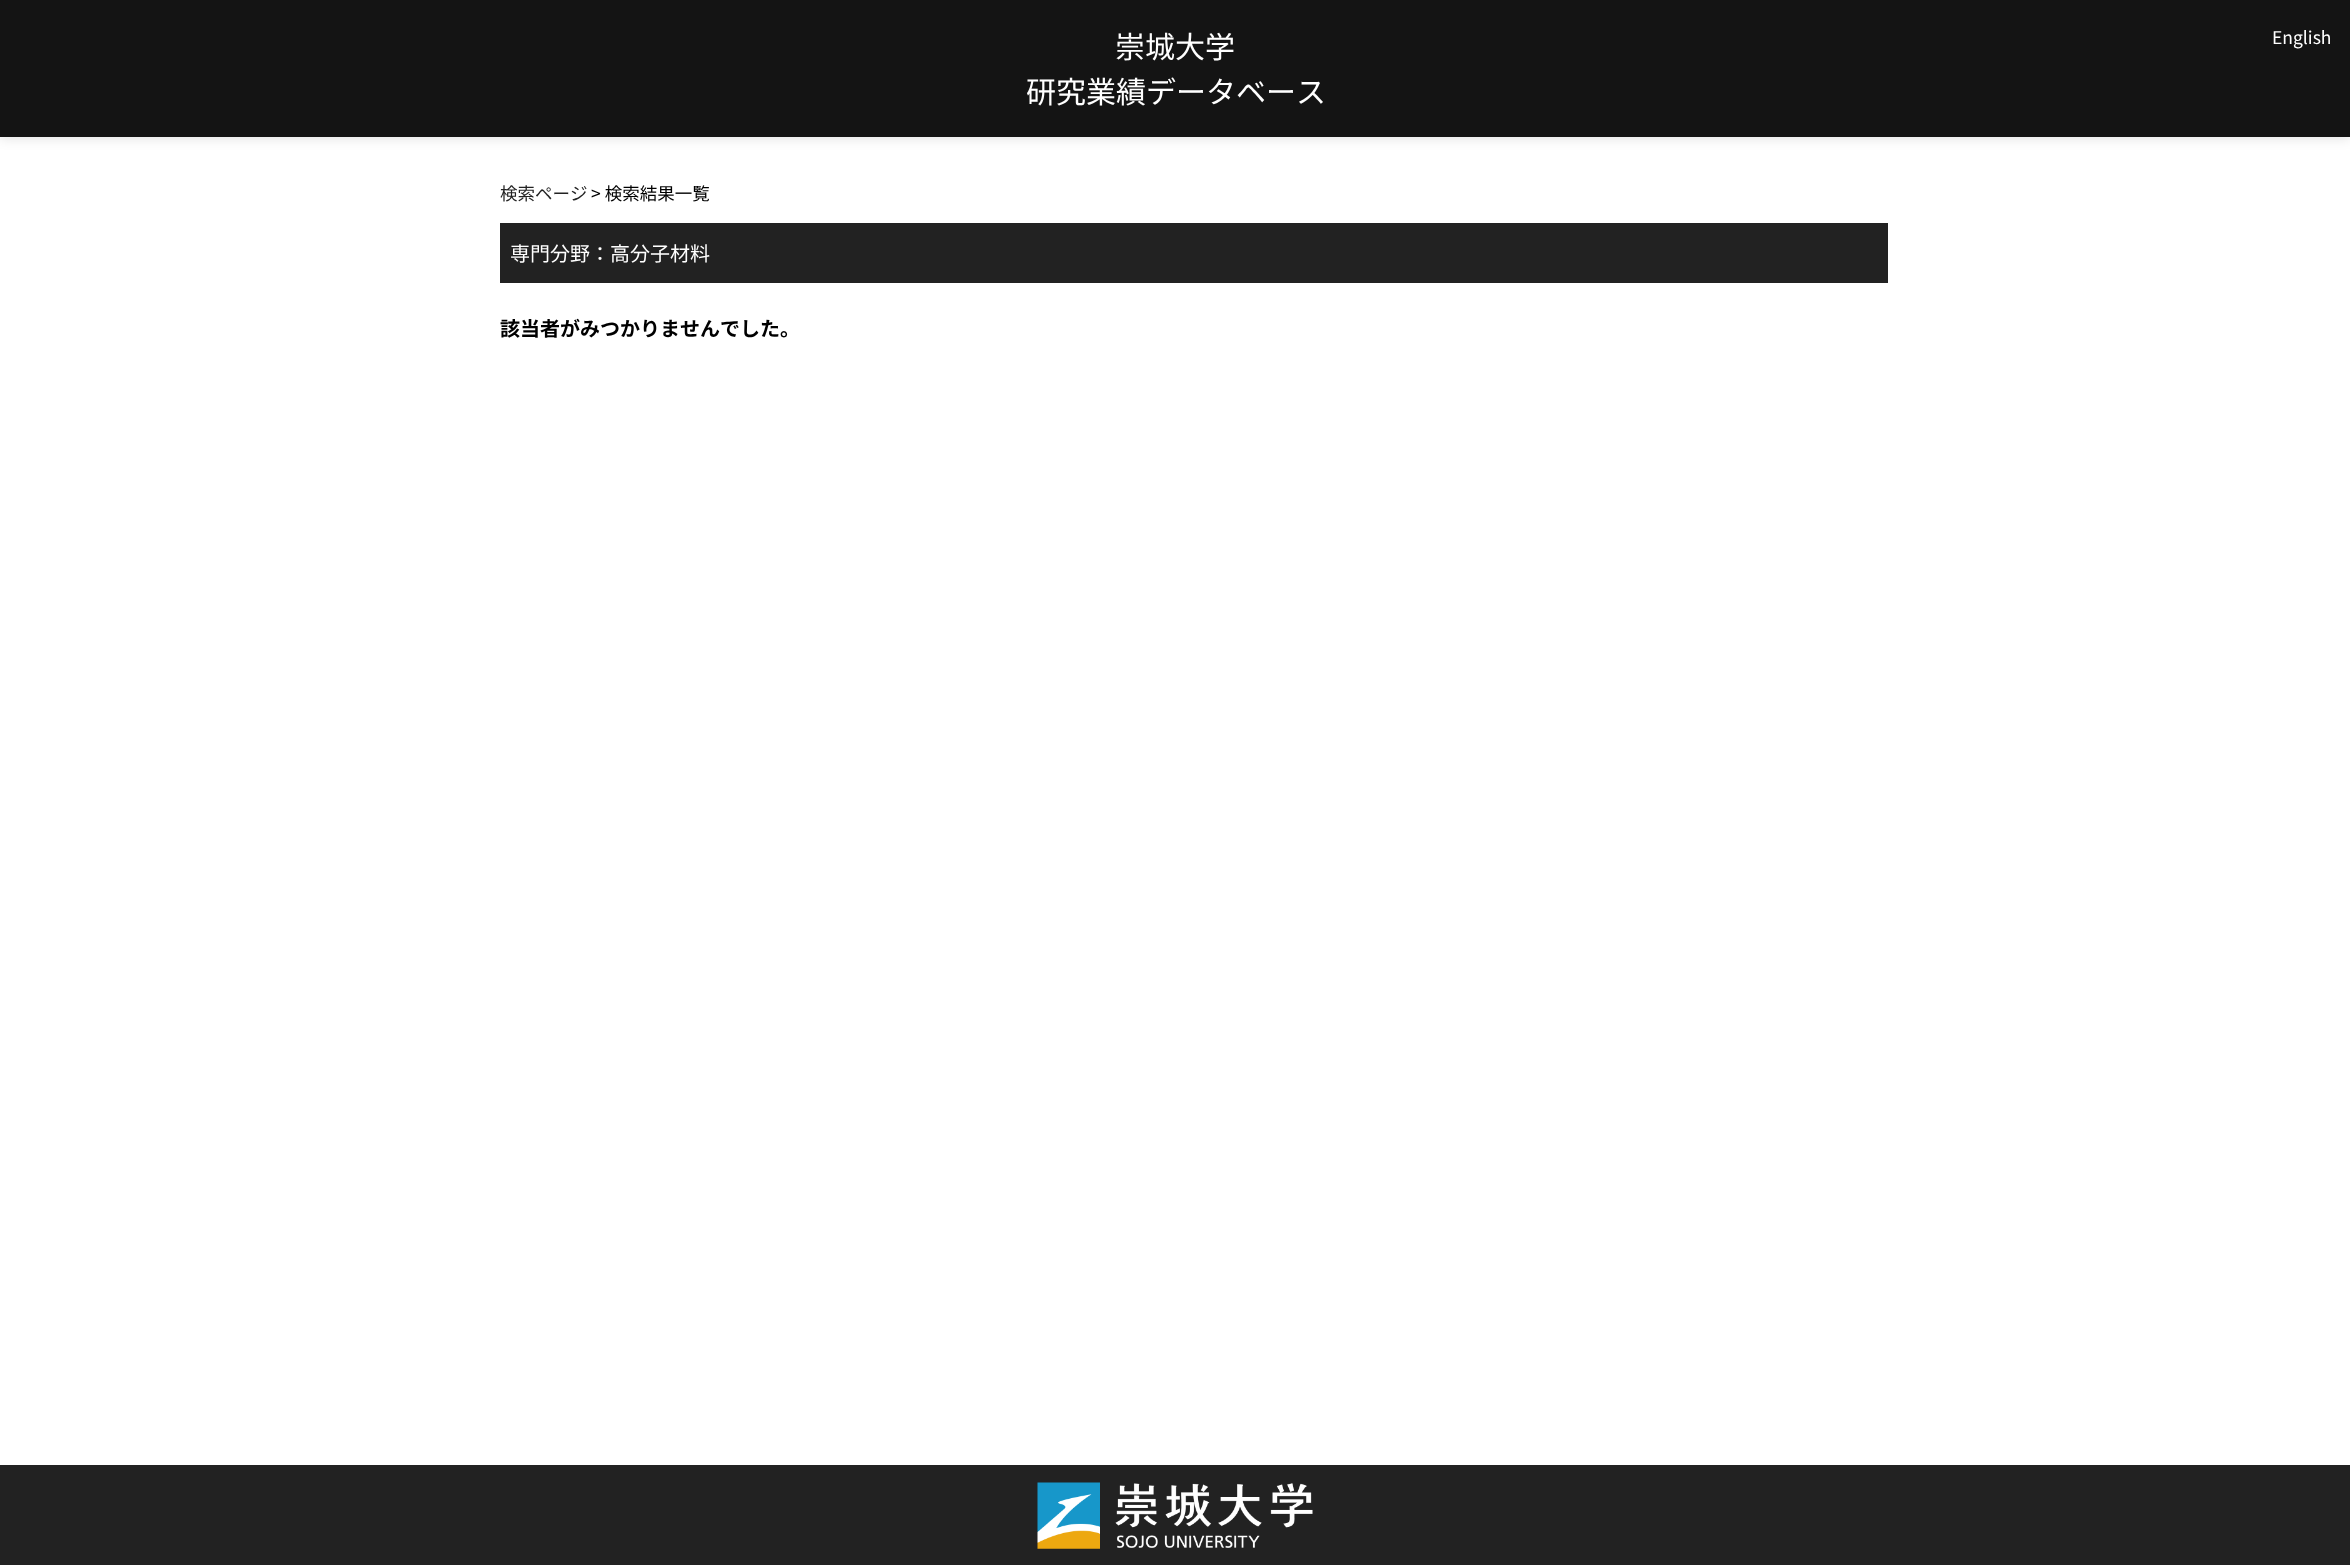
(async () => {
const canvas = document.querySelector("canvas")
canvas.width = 2350
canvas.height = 1565
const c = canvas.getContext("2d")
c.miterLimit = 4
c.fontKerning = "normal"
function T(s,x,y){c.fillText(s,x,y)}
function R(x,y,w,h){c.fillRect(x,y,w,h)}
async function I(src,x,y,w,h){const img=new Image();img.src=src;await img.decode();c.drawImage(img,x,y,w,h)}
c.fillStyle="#fff"
R(0,0,2350,1565)
c.fillStyle="#0000001a"
c.filter="blur(6px)"
c.beginPath()
c.rect(0,1,2350,138)
c.fill()
c.filter="none"
c.fillStyle="#141414"
R(0,0,2350,137)
c.font="30px Noto Sans JP"
c.fillStyle="#fff"
T("崇城大学",1115,58)
T("研究業績データベース",1026,103)
c.font="17.5px Noto Sans JP"
T("English",2272,44)
c.fillStyle="#222"
T("検索ページ",500,200)
c.fillStyle="#000"
T("> 検索結果一覧",591,200)
c.fillStyle="#222"
R(500,223,1388,60)
c.font="20px Noto Sans JP"
c.fillStyle="#fff"
T("専門分野：高分子材料",510,261)
c.font="bold 20px Noto Sans JP"
c.fillStyle="#000"
T("該当者がみつかりませんでした。",500,336)
c.fillStyle="#222"
R(0,1465,2350,100)
await I("1.png",1037,1482,276,67)
})()
